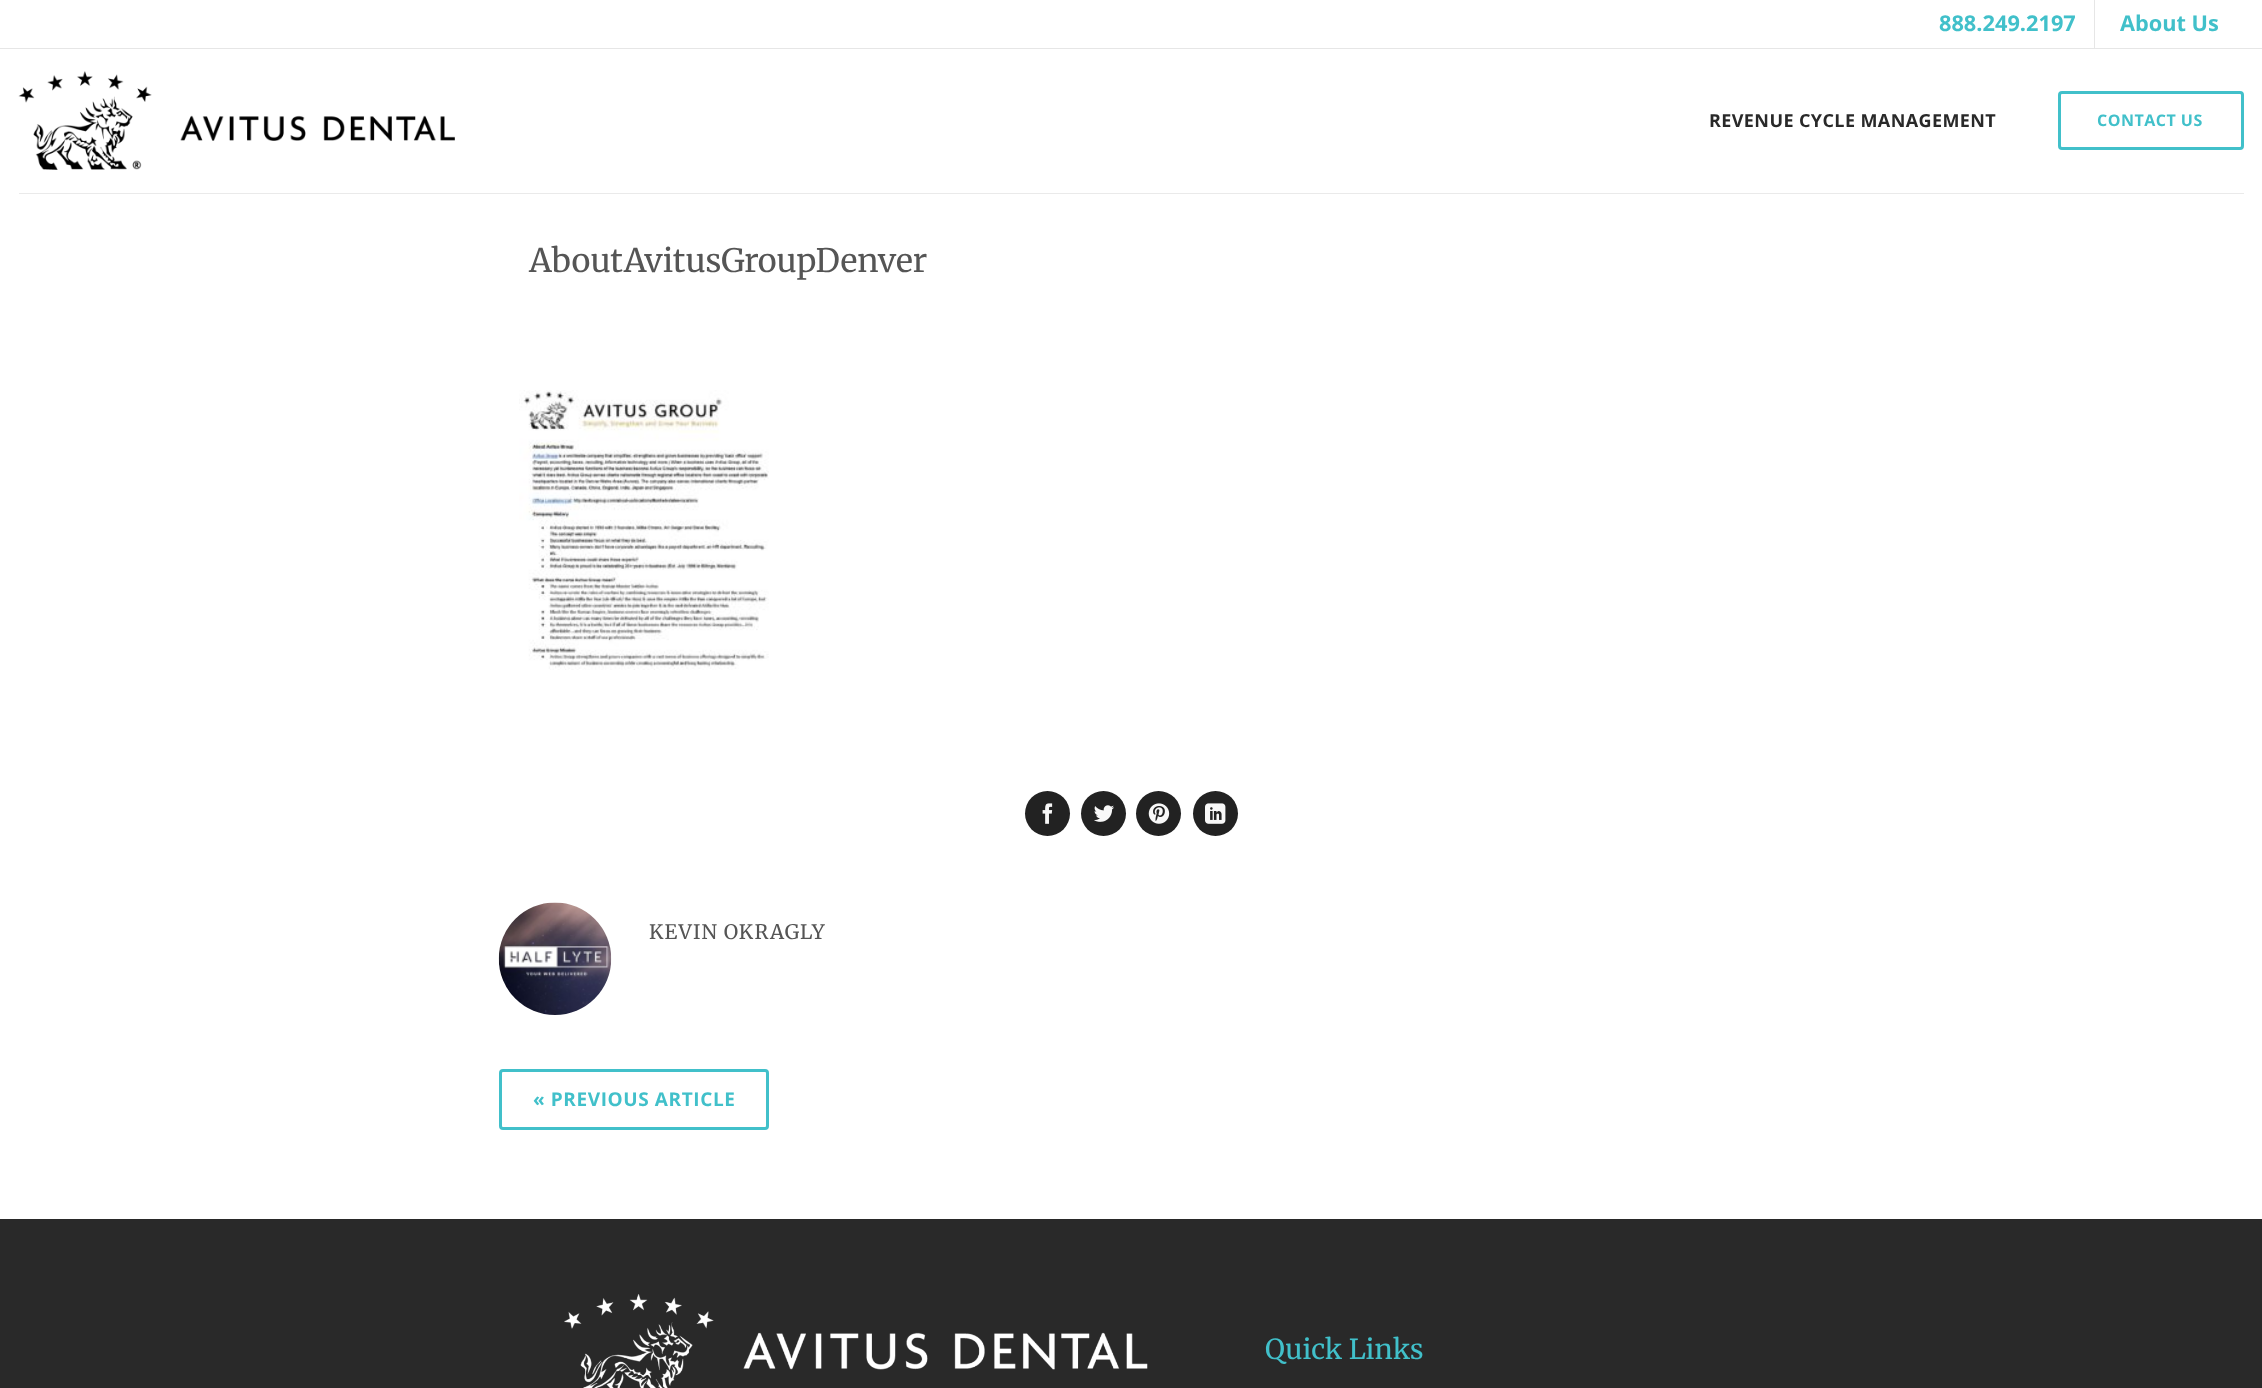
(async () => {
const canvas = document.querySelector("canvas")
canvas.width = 2262
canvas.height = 1388
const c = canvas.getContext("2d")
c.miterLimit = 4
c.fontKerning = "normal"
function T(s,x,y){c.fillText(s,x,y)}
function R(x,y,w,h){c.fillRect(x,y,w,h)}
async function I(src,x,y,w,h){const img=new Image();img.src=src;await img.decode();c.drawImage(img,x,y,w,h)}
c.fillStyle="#fff"
R(0,0,2262,1388)
c.fillStyle="#e6e6e6"
R(0,48,2262,1)
c.font="bold 21.75px Open Sans"
c.fillStyle="#41c0ca"
T("888.249.2197",1939,31)
c.fillStyle="#e6e6e6"
R(2094,0,1,48)
c.fillStyle="#41c0ca"
T("About Us",2120,31)
await I("1.png",18,71,437,99)
c.letterSpacing="0.4px"
c.font="bold 18px Open Sans"
c.fillStyle="#292929"
T("REVENUE CYCLE MANAGEMENT",1709,127)
c.beginPath()
c.roundRect(2059.5,92.5,183,56,2.5)
c.strokeStyle="#41c0ca"
c.lineWidth=3
c.stroke()
c.letterSpacing="0.5px"
c.font="bold 16px Open Sans"
c.fillStyle="#41c0ca"
T("CONTACT US",2097,126)
c.fillStyle="#eaeaea"
R(19,193,2225,1)
c.letterSpacing="0px"
c.font="32.25px Merriweather"
c.fillStyle="#555"
T("AboutAvitusGroupDenver",529,272)
await I("2.png",519,390,250,280)
c.fillStyle="#222"
c.beginPath()
c.arc(1047.5,813.5,22.5,0,7)
c.fill()
await I("3.png",1042,803,11,21)
c.beginPath()
c.arc(1103.5,813.5,22.5,0,7)
c.fill()
await I("4.png",1094,805,20,17)
c.beginPath()
c.arc(1158.5,813.5,22.5,0,7)
c.fill()
await I("5.png",1148,803,22,21)
c.beginPath()
c.arc(1215.5,813.5,22.5,0,7)
c.fill()
await I("6.png",1205,803,21,21)
await I("7.png",498,902,114,113)
c.letterSpacing="1px"
c.font="20px Merriweather"
c.fillStyle="#555"
T("KEVIN OKRAGLY",649,939)
c.beginPath()
c.roundRect(500.5,1070.5,267,58,2.5)
c.stroke()
c.letterSpacing="0.6px"
c.font="bold 19px Open Sans"
c.fillStyle="#41c0ca"
T("« PREVIOUS ARTICLE",533,1106)
c.fillStyle="#292929"
R(0,1219,2262,169)
await I("8.png",564,1294,584,94)
c.letterSpacing="0px"
c.font="27.5px Merriweather"
c.fillStyle="#41c0ca"
T("Quick Links",1265,1359)
})()
